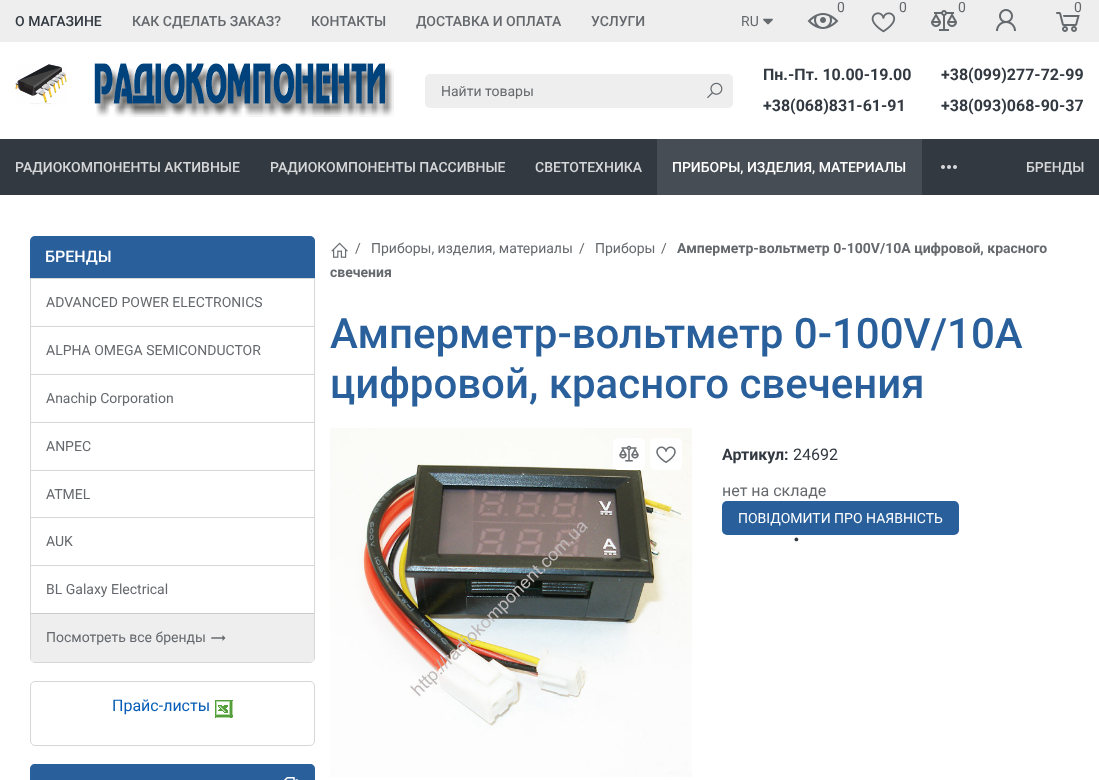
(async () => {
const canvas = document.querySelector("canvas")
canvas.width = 1099
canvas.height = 780
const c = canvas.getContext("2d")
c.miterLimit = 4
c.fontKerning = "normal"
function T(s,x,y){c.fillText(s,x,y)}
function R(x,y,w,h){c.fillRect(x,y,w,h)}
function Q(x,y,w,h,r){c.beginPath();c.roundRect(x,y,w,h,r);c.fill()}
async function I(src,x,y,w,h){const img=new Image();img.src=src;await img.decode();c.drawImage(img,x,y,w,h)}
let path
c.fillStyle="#fff"
R(0,0,1099,780)
c.fillStyle="#eee"
R(0,0,1099,42)
c.font="500 14px Roboto"
c.fillStyle="#323941"
T("О МАГАЗИНЕ",15,26)
c.fillStyle="#65696d"
T("КАК СДЕЛАТЬ ЗАКАЗ?",132,26)
T("КОНТАКТЫ",311,26)
T("ДОСТАВКА И ОПЛАТА",416,26)
T("УСЛУГИ",591,26)
c.font="14px Roboto"
T("0",837,12)
await I("1.png",807,13,32,16)
T("0",899,12)
await I("2.png",871,12,25,21)
T("0",958,12)
await I("3.png",931,10,26,21)
await I("4.png",1056,12,24,20)
T("0",1074,12)
T("RU",741,26)
await I("5.png",763,18,10,7)
await I("6.png",996,9,20,22)
await I("7.png",15,63,379,54)
c.fillStyle="#eee"
Q(425,74,308,34,5)
c.fillStyle="#65696d"
T("Найти товары",441,96)
await I("8.png",707,82,16,17)
c.font="bold 16px Roboto"
c.fillStyle="#323941"
T("Пн.-Пт. 10.00-19.00",763,80)
T("+38(068)831-61-91",763,111)
T("+38(099)277-72-99",941,80)
T("+38(093)068-90-37",941,111)
R(0,139,1099,56)
c.font="500 14px Roboto"
c.fillStyle="#d6d7d9"
T("РАДИОКОМПОНЕНТЫ АКТИВНЫЕ",15,172)
T("РАДИОКОМПОНЕНТЫ ПАССИВНЫЕ",270,172)
T("СВЕТОТЕХНИКА",535,172)
c.fillStyle="#474d54"
R(657,139,265,56)
c.fillStyle="#fff"
T("ПРИБОРЫ, ИЗДЕЛИЯ, МАТЕРИАЛЫ",672,172)
await I("9.png",941,165,16,4)
c.fillStyle="#d6d7d9"
T("БРЕНДЫ",1026,172)
c.beginPath()
c.roundRect(30.5,236.5,284,426,4.5)
c.strokeStyle="#d6d7d9"
c.stroke()
c.fillStyle="#29609c"
c.beginPath()
c.roundRect(30,236,285,42,[5,5,0,0])
c.fill()
c.font="500 16px Roboto"
c.fillStyle="#fff"
T("БРЕНДЫ",45,262)
c.fillStyle="#d6d7d9"
R(31,278,283,1)
c.font="14px Roboto"
c.fillStyle="#65696d"
T("ADVANCED POWER ELECTRONICS",46,307)
c.fillStyle="#d6d7d9"
R(31,326,283,1)
c.fillStyle="#65696d"
T("ALPHA OMEGA SEMICONDUCTOR",46,355)
c.fillStyle="#d6d7d9"
R(31,374,283,1)
c.fillStyle="#65696d"
T("Anachip Corporation",46,403)
c.fillStyle="#d6d7d9"
R(31,422,283,1)
c.fillStyle="#65696d"
T("ANPEC",46,451)
c.fillStyle="#d6d7d9"
R(31,470,283,1)
c.fillStyle="#65696d"
T("ATMEL",46,499)
c.fillStyle="#d6d7d9"
R(31,517,283,1)
c.fillStyle="#65696d"
T("AUK",46,546)
c.fillStyle="#d6d7d9"
R(31,565,283,1)
c.fillStyle="#65696d"
T("BL Galaxy Electrical",46,594)
c.fillStyle="#eee"
R(31,614,283,48)
c.fillStyle="#c8cacb"
R(31,613,283,1)
c.fillStyle="#65696d"
T("Посмотреть все бренды",46,642)
await I("10.png",211,635,15,6)
c.beginPath()
c.roundRect(30.5,681.5,284,64,4.5)
c.stroke()
c.font="16px Roboto"
c.fillStyle="#065cb6"
T("Прайс-листы",112,711)
await I("11.png",215,700,18,18)
c.beginPath()
c.roundRect(30.5,764.5,284,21,4.5)
c.stroke()
c.fillStyle="#29609c"
path = new Path2D("M35 764h275c3 0 5 2 5 5v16h-285v-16c0-3 2-5 5-5z")
c.fill(path)
await I("12.png",284,777,14,3)
c.font="14px Roboto"
c.fillStyle="#65696d"
T("/",661,253)
c.font="bold 14px Roboto"
T("Амперметр-вольтметр 0-100V/10A цифровой, красного",677,253)
T("свечения",330,277)
await I("13.png",331,242,17,16)
c.font="14px Roboto"
T("/",355,253)
T("Приборы, изделия, материалы",371,253)
T("/",579,253)
T("Приборы",595,253)
c.font="500 42px Roboto"
c.fillStyle="#29609c"
T("Амперметр-вольтметр 0-100V/10A",330,348)
T("цифровой, красного свечения",330,398)
await I("14.png",330,428,362,349)
c.fillStyle="#fff"
Q(613,438,32,32,5)
await I("15.png",619,445,20,17)
Q(650,438,32,32,5)
await I("16.png",656,446,20,17)
c.font="bold 16px Roboto"
c.fillStyle="#323941"
T("Артикул:",722,460)
c.font="16px Roboto"
T("24692",793,460)
c.fillStyle="#65696d"
T("нет на складе",722,496)
c.fillStyle="#29609c"
Q(722,501,237,34,5)
c.font="14px Roboto"
c.fillStyle="#fff"
T("ПОВІДОМИТИ ПРО НАЯВНІСТЬ",738,523)
c.font="bold 24px Roboto"
c.fillStyle="#323941"
T(".",793,541)
})()
